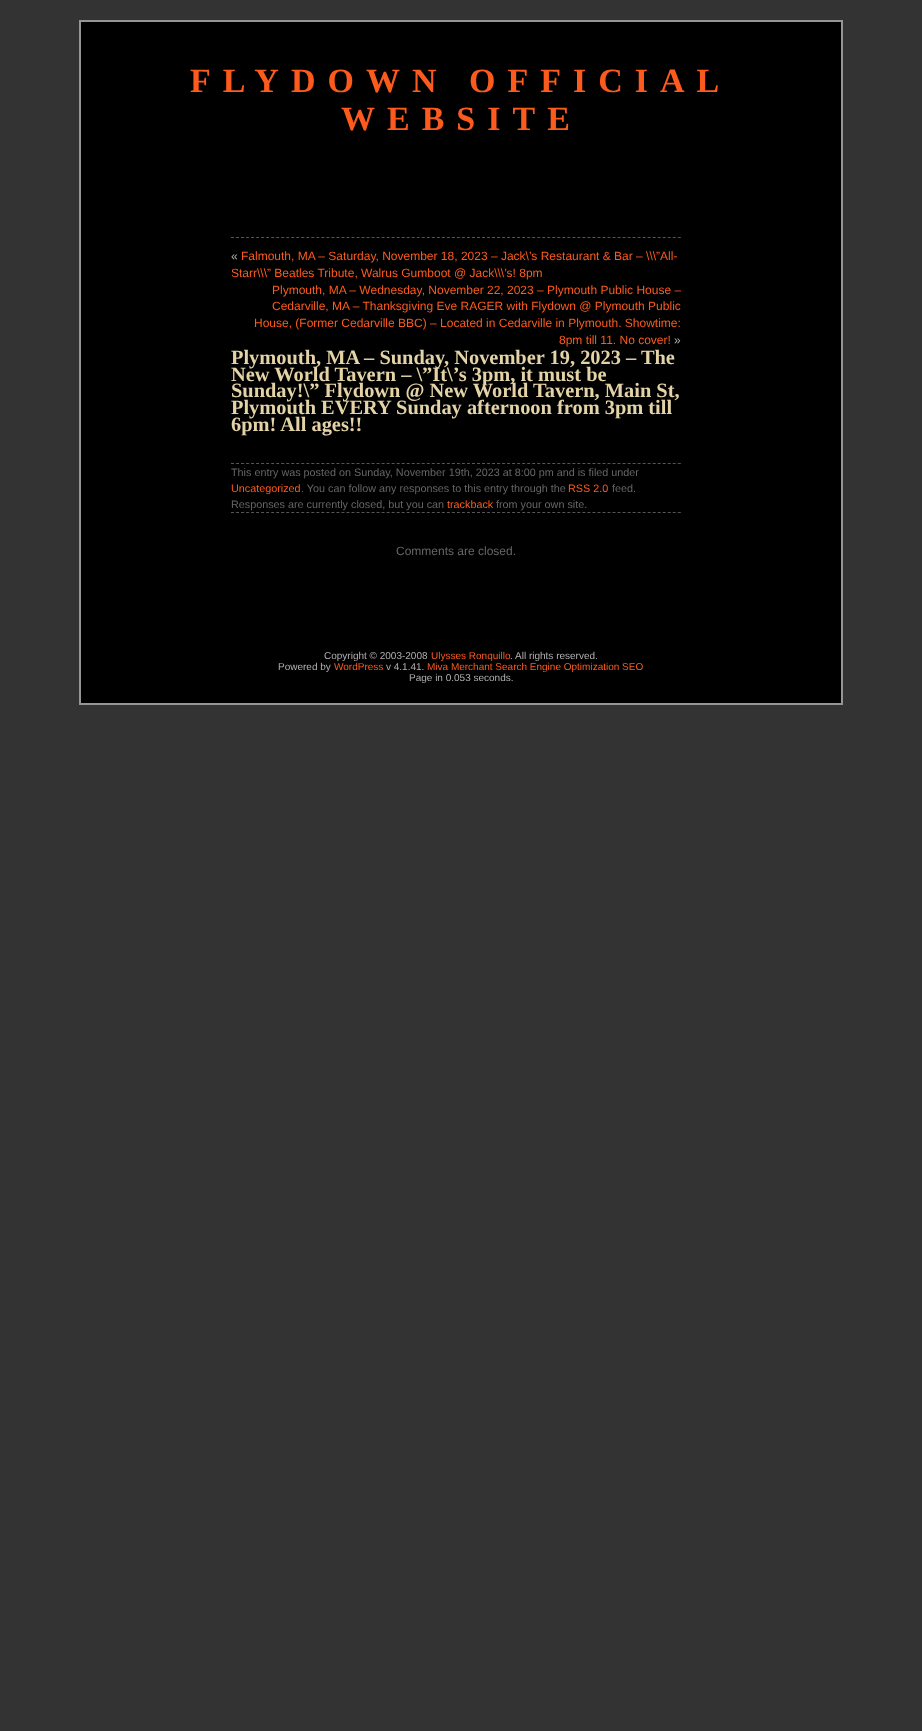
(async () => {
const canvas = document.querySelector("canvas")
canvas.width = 922
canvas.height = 1731
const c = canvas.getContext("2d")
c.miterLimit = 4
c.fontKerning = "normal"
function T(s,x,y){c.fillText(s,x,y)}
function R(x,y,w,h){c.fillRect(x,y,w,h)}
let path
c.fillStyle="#333"
R(0,0,922,1731)
c.fillStyle="#000"
c.beginPath()
c.rect(80,21,762,683)
c.fill()
c.strokeStyle="#959596"
c.lineWidth=2
c.stroke()
c.letterSpacing="12px"
c.font="bold 34px Liberation Serif"
c.fillStyle="#fd5a1e"
T("FLYDOWN OFFICIAL",190,92)
T("WEBSITE",341,130)
path = new Path2D("M231 237.5h450")
c.strokeStyle="#555"
c.lineWidth=1
c.setLineDash([3,2.02])
c.stroke(path)
c.letterSpacing="0px"
c.font="12px Liberation Sans"
c.fillStyle="#b0b0b0"
T("«",231,260)
c.fillStyle="#fd5a1e"
T("Falmouth, MA – Saturday, November 18, 2023 – Jack\\’s Restaurant & Bar – \\\\\\”All-",241,260)
T("Starr\\\\\\” Beatles Tribute, Walrus Gumboot @ Jack\\\\\\’s! 8pm",231,277)
T("Plymouth, MA – Wednesday, November 22, 2023 – Plymouth Public House –",272,294)
T("Cedarville, MA – Thanksgiving Eve RAGER with Flydown @ Plymouth Public",272,310)
T("House, (Former Cedarville BBC) – Located in Cedarville in Plymouth. Showtime:",254,327)
T("8pm till 11. No cover!",559,344)
c.fillStyle="#b0b0b0"
T("»",674,344)
c.font="bold 20.4px Liberation Serif"
c.fillStyle="#e4d3a6"
T("Plymouth, MA – Sunday, November 19, 2023 – The",231,364)
T("New World Tavern – \\”It\\’s 3pm, it must be",231,381)
T("Sunday!\\” Flydown @ New World Tavern, Main St,",231,397)
T("Plymouth EVERY Sunday afternoon from 3pm till",231,414)
T("6pm! All ages!!",231,431)
path = new Path2D("M231 463.5h450")
c.stroke(path)
path = new Path2D("M231 512.5h450")
c.stroke(path)
c.font="10.8px Liberation Sans"
c.fillStyle="#666"
T("This entry was posted on Sunday, November 19th, 2023 at 8:00 pm and is filed under",231,476)
c.fillStyle="#fd5a1e"
T("Uncategorized",231,492)
c.fillStyle="#666"
T(". You can follow any responses to this entry through the",301,492)
c.fillStyle="#fd5a1e"
T("RSS 2.0",568,492)
c.fillStyle="#666"
T("feed.",612,492)
T("Responses are currently closed, but you can",231,508)
c.fillStyle="#fd5a1e"
T("trackback",447,508)
c.fillStyle="#666"
T("from your own site.",496,508)
c.font="12px Liberation Sans"
T("Comments are closed.",396,555)
c.font="10px Liberation Sans"
c.fillStyle="#b0b0b0"
T("Copyright © 2003-2008",324,659)
c.fillStyle="#fd5a1e"
T("Ulysses Ronquillo",431,659)
c.fillStyle="#b0b0b0"
T(". All rights reserved.",510,659)
T("Powered by",278,670)
c.fillStyle="#fd5a1e"
T("WordPress",334,670)
c.fillStyle="#b0b0b0"
T("v 4.1.41.",386,670)
c.fillStyle="#fd5a1e"
T("Miva Merchant Search Engine Optimization SEO",427,670)
c.fillStyle="#b0b0b0"
T("Page in 0.053 seconds.",409,681)
})()
